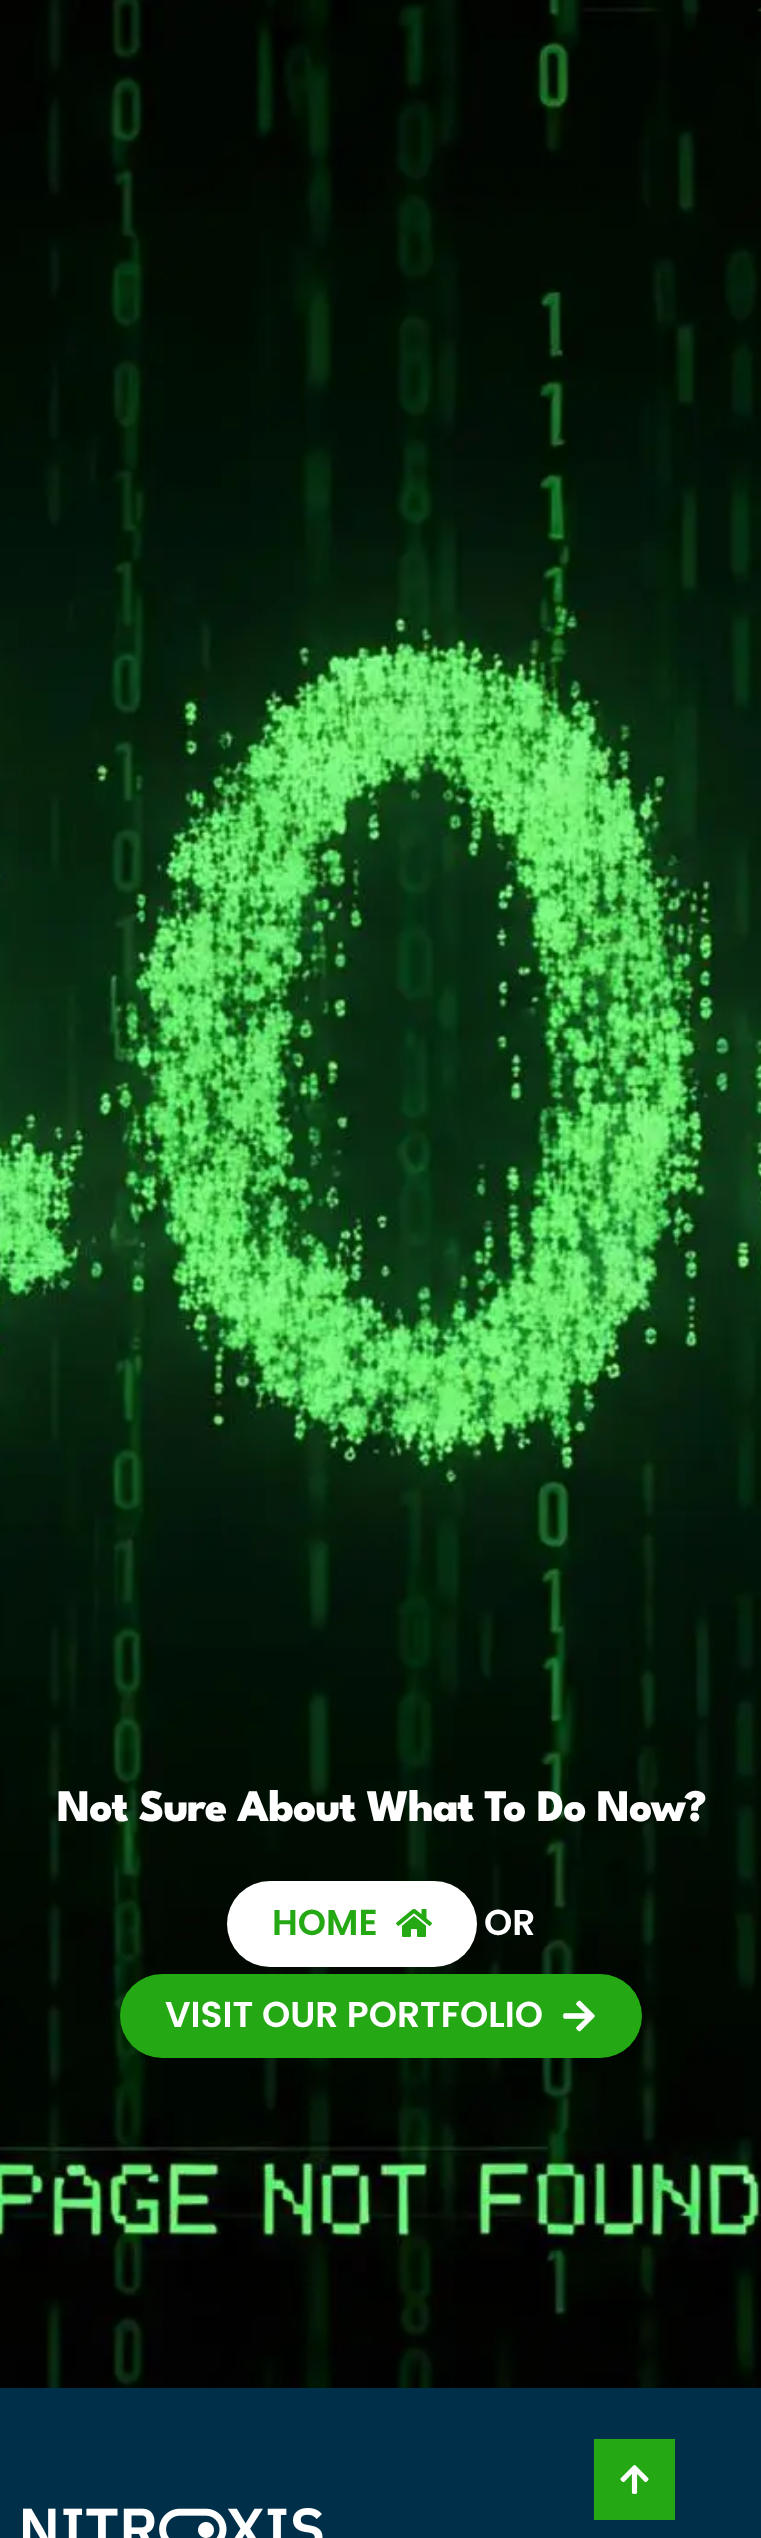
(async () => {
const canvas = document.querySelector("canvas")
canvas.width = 761
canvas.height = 2538
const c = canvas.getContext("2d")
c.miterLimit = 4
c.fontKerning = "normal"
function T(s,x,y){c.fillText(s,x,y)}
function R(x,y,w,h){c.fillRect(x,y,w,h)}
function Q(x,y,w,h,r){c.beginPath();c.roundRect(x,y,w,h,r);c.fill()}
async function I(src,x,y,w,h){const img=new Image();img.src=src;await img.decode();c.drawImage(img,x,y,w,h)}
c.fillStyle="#fff"
R(0,0,761,2538)
await I("1.png",0,0,761,2388)
c.letterSpacing="-1.05px"
c.font="800 45px League Spartan"
T("Not Sure About What To Do Now?",57,1821)
Q(227,1881,250,86,43)
c.letterSpacing="0px"
c.font="600 36px Poppins"
c.fillStyle="#24a813"
T("HOME",272,1935)
await I("2.png",396,1909,36,28)
c.fillStyle="#fff"
T("OR",484,1935)
c.fillStyle="#24a813"
Q(120,1974,522,84,42)
c.fillStyle="#fff"
T("VISIT OUR PORTFOLIO",165,2027)
await I("3.png",563,2000,32,32)
c.fillStyle="#003049"
R(0,2388,761,150)
await I("4.png",23,2508,300,30)
c.fillStyle="#24a813"
R(594,2439,81,81)
await I("5.png",620,2465,29,29)
})()
